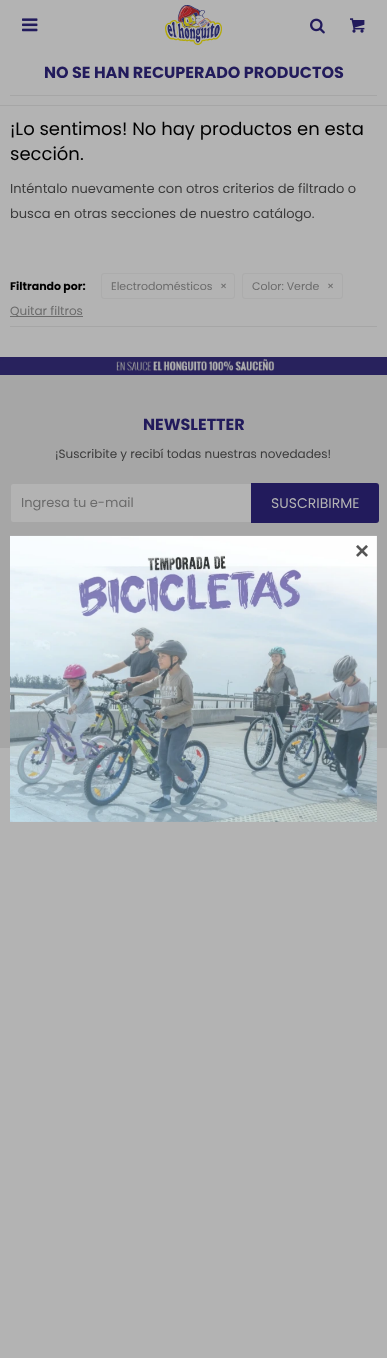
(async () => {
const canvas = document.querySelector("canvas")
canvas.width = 387
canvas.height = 1358
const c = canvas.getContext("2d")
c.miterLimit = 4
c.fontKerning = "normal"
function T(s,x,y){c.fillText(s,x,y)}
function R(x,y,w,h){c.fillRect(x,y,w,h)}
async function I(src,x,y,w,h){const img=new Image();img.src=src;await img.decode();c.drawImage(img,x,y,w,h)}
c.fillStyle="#b3b3b3"
R(0,0,387,1358)
await I("1.png",22,18,16,14)
await I("2.png",165,5,57,40)
await I("3.png",310,18,15,16)
await I("4.png",350,18,15,15)
c.fillStyle="#a6a6a6"
R(10,95,367,1)
c.font="bold 16px Poppins"
c.fillStyle="#221b5c"
T("NO SE HAN RECUPERADO PRODUCTOS",44,78)
c.fillStyle="#a6a6a6"
R(0,105,387,1)
c.font="18px Poppins"
c.fillStyle="#000"
T("¡Lo sentimos! No hay productos en esta",10,135)
T("sección.",10,160)
c.font="13px Poppins"
c.fillStyle="#3b3b3b"
T("Inténtalo nuevamente con otros criterios de filtrado o",10,193)
T("busca en otras secciones de nuestro catálogo.",10,218)
c.fillStyle="#a6a6a6"
R(10,326,367,1)
c.font="bold 11px Poppins"
c.fillStyle="#000"
T("Filtrando por:",10,290)
c.beginPath()
c.roundRect(101.5,273.5,133,25,2.5)
c.strokeStyle="#acacac"
c.stroke()
c.font="11px Poppins"
c.fillStyle="#6b6b6b"
T("Electrodomésticos",111,290)
T("×",220,290)
c.beginPath()
c.roundRect(242.5,273.5,100,25,2.5)
c.stroke()
T("Color: Verde",252,290)
T("×",327,290)
R(10,316,73,1)
c.font="12px Poppins"
T("Quitar filtros",10,315)
c.fillStyle="#a6a6a6"
R(0,375,387,373)
await I("5.png",0,357,387,18)
c.font="bold 16px Poppins"
c.fillStyle="#221b5c"
T("NEWSLETTER",143,430)
c.font="12px Poppins"
c.fillStyle="#3b3b3b"
T("¡Suscribite y recibí todas nuestras novedades!",55,458)
c.fillStyle="#b3b3b3"
c.beginPath()
c.roundRect(10.5,483.5,366,39,2.5)
c.fill()
c.strokeStyle="#a6a6a6"
c.stroke()
c.font="13px Poppins"
c.fillStyle="#6b6b6b"
T("Ingresa tu e-mail",21,507)
c.fillStyle="#221b5c"
c.beginPath()
c.roundRect(251,483,128,40,[0,3,3,0])
c.fill()
c.font="14px Poppins"
c.fillStyle="#b3b3b3"
T("SUSCRIBIRME",271,508)
await I("6.png",376,721,1,6)
await I("7.png",10,535,367,287)
await I("8.png",356,545,12,12)
})()
